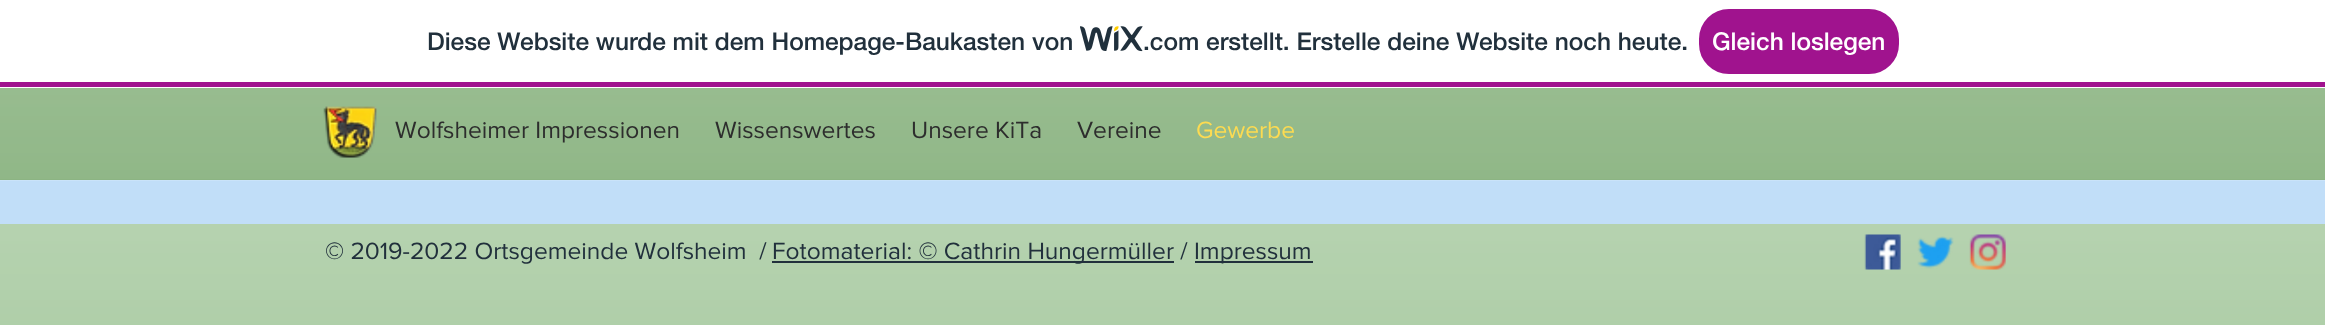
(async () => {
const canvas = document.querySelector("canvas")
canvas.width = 2325
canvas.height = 325
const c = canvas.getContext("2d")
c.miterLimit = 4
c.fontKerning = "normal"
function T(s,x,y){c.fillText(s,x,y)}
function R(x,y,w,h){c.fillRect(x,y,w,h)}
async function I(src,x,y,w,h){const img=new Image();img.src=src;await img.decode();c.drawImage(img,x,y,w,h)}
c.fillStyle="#fff"
R(0,0,2325,325)
c.fillStyle="#a0138e"
R(0,82,2325,5)
c.font="500 24.5px 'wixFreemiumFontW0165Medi'"
c.fillStyle="#21303c"
T("Diese Website wurde mit dem Homepage-Baukasten von",427,50)
await I("1.png",1080,26,63,26)
T(".com erstellt. Erstelle deine Website noch heute.",1143,50)
c.fillStyle="#a0138e"
c.beginPath()
c.roundRect(1700,10,198,63,29)
c.fill()
c.strokeStyle="#a0138e"
c.lineWidth=2
c.stroke()
c.fillStyle="#fff"
T("Gleich loslegen",1712,50)
c.fillStyle="#74a569"
R(0,88,2325,92)
c.fillStyle="#c1def8"
R(0,180,2325,44)
await I("2.png",0,88,2325,93)
await I("3.png",323,106,54,52)
c.font="24.5px 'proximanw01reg'"
c.fillStyle="#2d2d2d"
T("Wolfsheimer Impressionen",395,138)
T("Wissenswertes",715,138)
T("Unsere KiTa",911,138)
T("Vereine",1077,138)
c.fillStyle="#fddb51"
T("Gewerbe",1196,138)
c.fillStyle="#9cc394"
R(0,224,2325,101)
await I("4.png",0,224,2325,101)
c.fillStyle="#21303c"
T("© 2019-2022 Ortsgemeinde Wolfsheim  /",325,259)
R(772,261,402,2)
T("Fotomaterial: © Cathrin Hungermüller /",772,259)
R(1195,261,118,2)
T("Impressum",1194,259)
await I("5.png",1864,234,37,36)
await I("6.png",1917,236,37,33)
await I("7.png",1969,234,37,36)
})()
